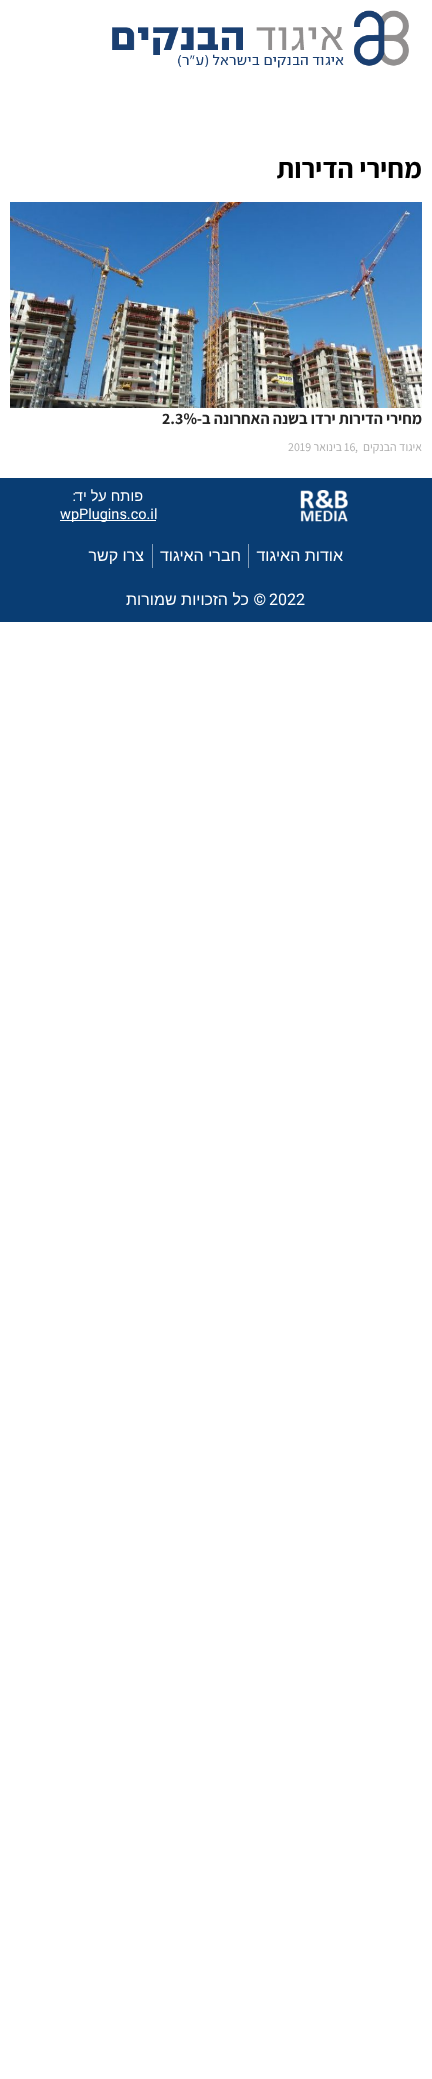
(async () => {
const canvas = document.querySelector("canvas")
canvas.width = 432
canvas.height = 2079
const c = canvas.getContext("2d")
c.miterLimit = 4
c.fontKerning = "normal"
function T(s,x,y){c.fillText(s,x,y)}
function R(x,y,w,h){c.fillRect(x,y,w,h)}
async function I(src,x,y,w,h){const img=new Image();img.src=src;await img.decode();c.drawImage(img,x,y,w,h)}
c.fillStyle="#fff"
R(0,0,432,2079)
await I("1.png",112,10,297,58)
c.direction="rtl"
c.font="bold 28px Assistant"
c.fillStyle="#000"
T("מחירי הדירות",422,178)
await I("2.png",10,202,412,206)
c.font="bold 16px Assistant"
c.fillStyle="#262626"
T("מחירי הדירות ירדו בשנה האחרונה ב-",422,424)
c.direction="ltr"
T("2.3%",162,424)
c.direction="rtl"
c.font="12px Assistant"
c.fillStyle="#adadad"
T("איגוד הבנקים",422,451)
c.direction="ltr"
T(",",355,451)
T("16",344,451)
c.direction="rtl"
T("בינואר",342,451)
c.direction="ltr"
T("2019",288,451)
c.fillStyle="#093d73"
R(0,478,432,144)
await I("3.png",300,490,48,32)
c.direction="rtl"
c.font="14.5px Liberation Sans"
c.fillStyle="#fff"
T("פותח על יד",143,501)
c.font="14.5px Roboto"
T(":",76,501)
R(60,520,96,1)
c.direction="ltr"
T("wpPlugins.co.il",60,519)
c.direction="rtl"
c.font="16px Liberation Sans"
T("אודות האיגוד",343,561)
c.fillStyle="#849eb9"
R(248,544,1,24)
c.fillStyle="#fff"
T("חברי האיגוד",241,561)
c.fillStyle="#849eb9"
R(152,544,1,24)
c.fillStyle="#fff"
T("צרו קשר",144,561)
c.direction="ltr"
c.font="16px Roboto"
T("2022",269,605)
c.direction="rtl"
T("©",266,605)
c.font="16px Liberation Sans"
T("כל הזכויות שמורות",249,605)
})()
